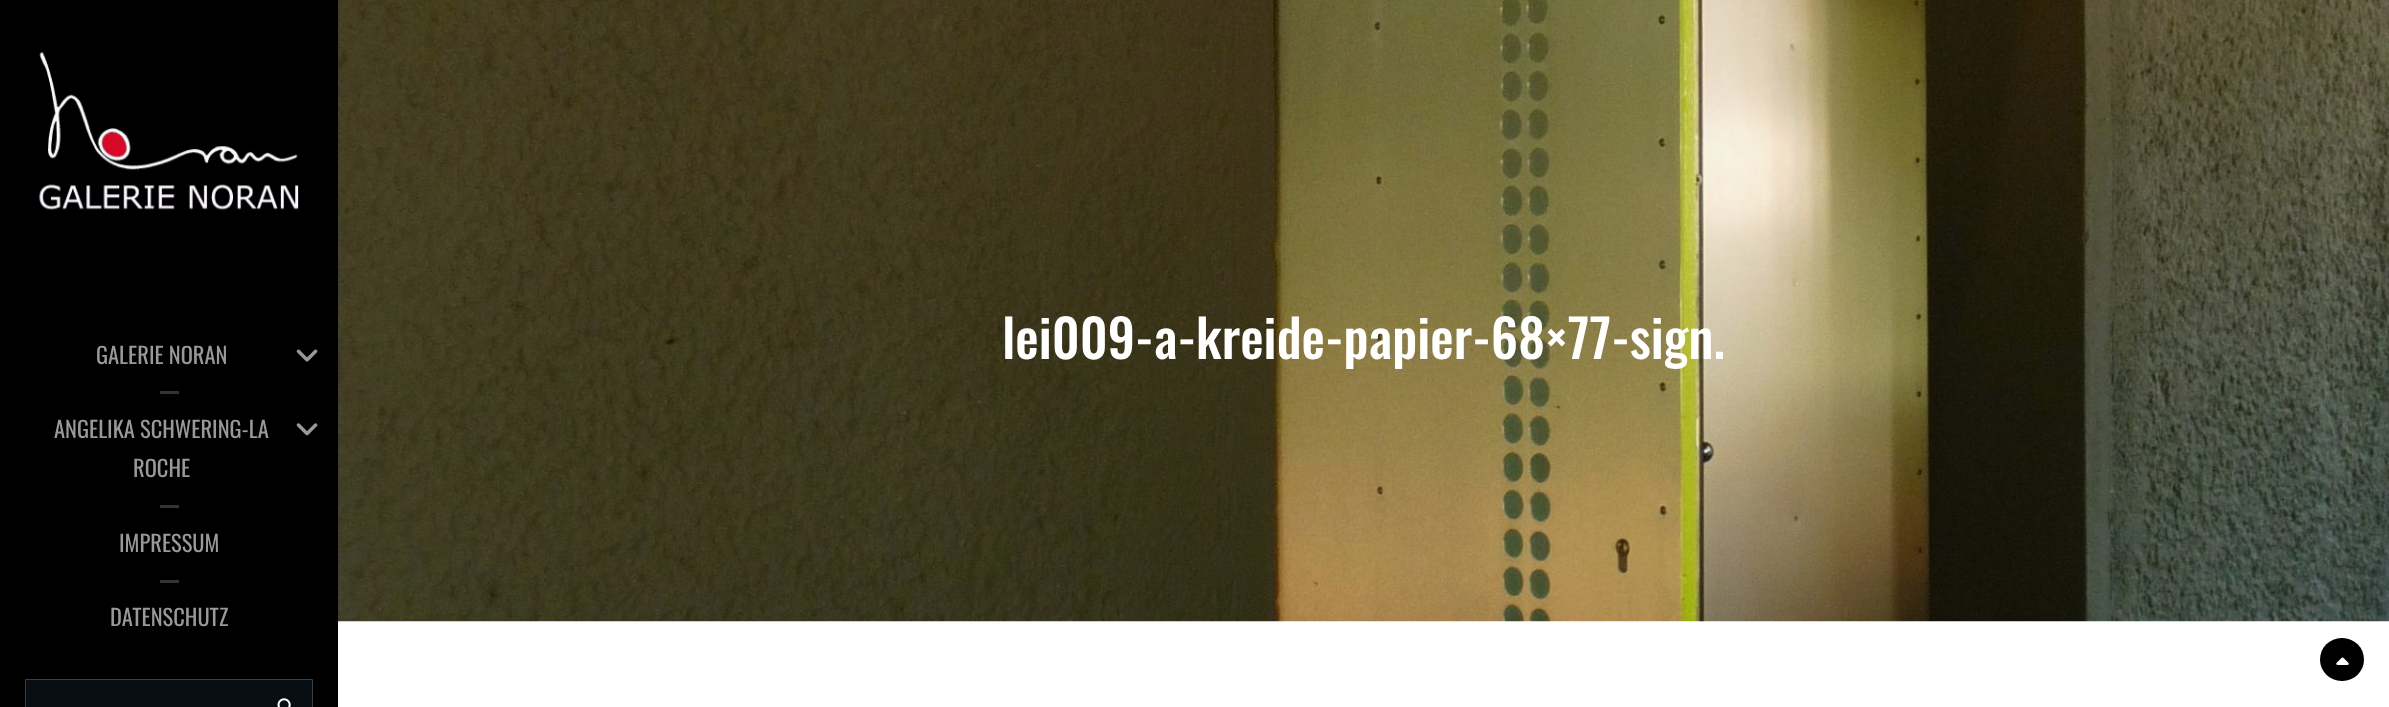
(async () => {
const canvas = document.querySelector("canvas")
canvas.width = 2389
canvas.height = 707
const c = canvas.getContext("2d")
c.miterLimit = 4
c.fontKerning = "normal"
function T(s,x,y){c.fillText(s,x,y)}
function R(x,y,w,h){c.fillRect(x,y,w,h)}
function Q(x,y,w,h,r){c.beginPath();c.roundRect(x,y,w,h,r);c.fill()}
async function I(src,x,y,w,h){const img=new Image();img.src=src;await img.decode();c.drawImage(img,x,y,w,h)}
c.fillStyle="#fff"
R(0,0,2389,707)
c.fillStyle="#000"
R(0,0,338,707)
await I("1.png",39,52,260,159)
c.font="22.5px Oswald"
c.fillStyle="#999"
T("GALERIE NORAN",96,364)
await I("2.png",296,349,22,13)
c.fillStyle="#333"
R(160,391,19,3)
c.fillStyle="#999"
T("ANGELIKA SCHWERING-LA",54,438)
T("ROCHE",133,477)
await I("3.png",296,423,22,13)
c.fillStyle="#333"
R(160,505,19,3)
c.fillStyle="#999"
T("IMPRESSUM",119,552)
c.fillStyle="#333"
R(160,580,19,3)
c.fillStyle="#999"
T("DATENSCHUTZ",110,626)
c.fillStyle="#070f14"
c.beginPath()
c.rect(25.5,679.5,287,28)
c.fill()
c.strokeStyle="#393f43"
c.stroke()
await I("4.png",277,698,14,9)
await I("5.png",338,0,2051,622)
c.font="500 52.5px Oswald"
c.fillStyle="#fff"
T("lei009-a-kreide-papier-68×77-sign.",1002,359)
c.fillStyle="#000"
Q(2320,638,44,43,21.5)
await I("6.png",2336,657,13,8)
})()
